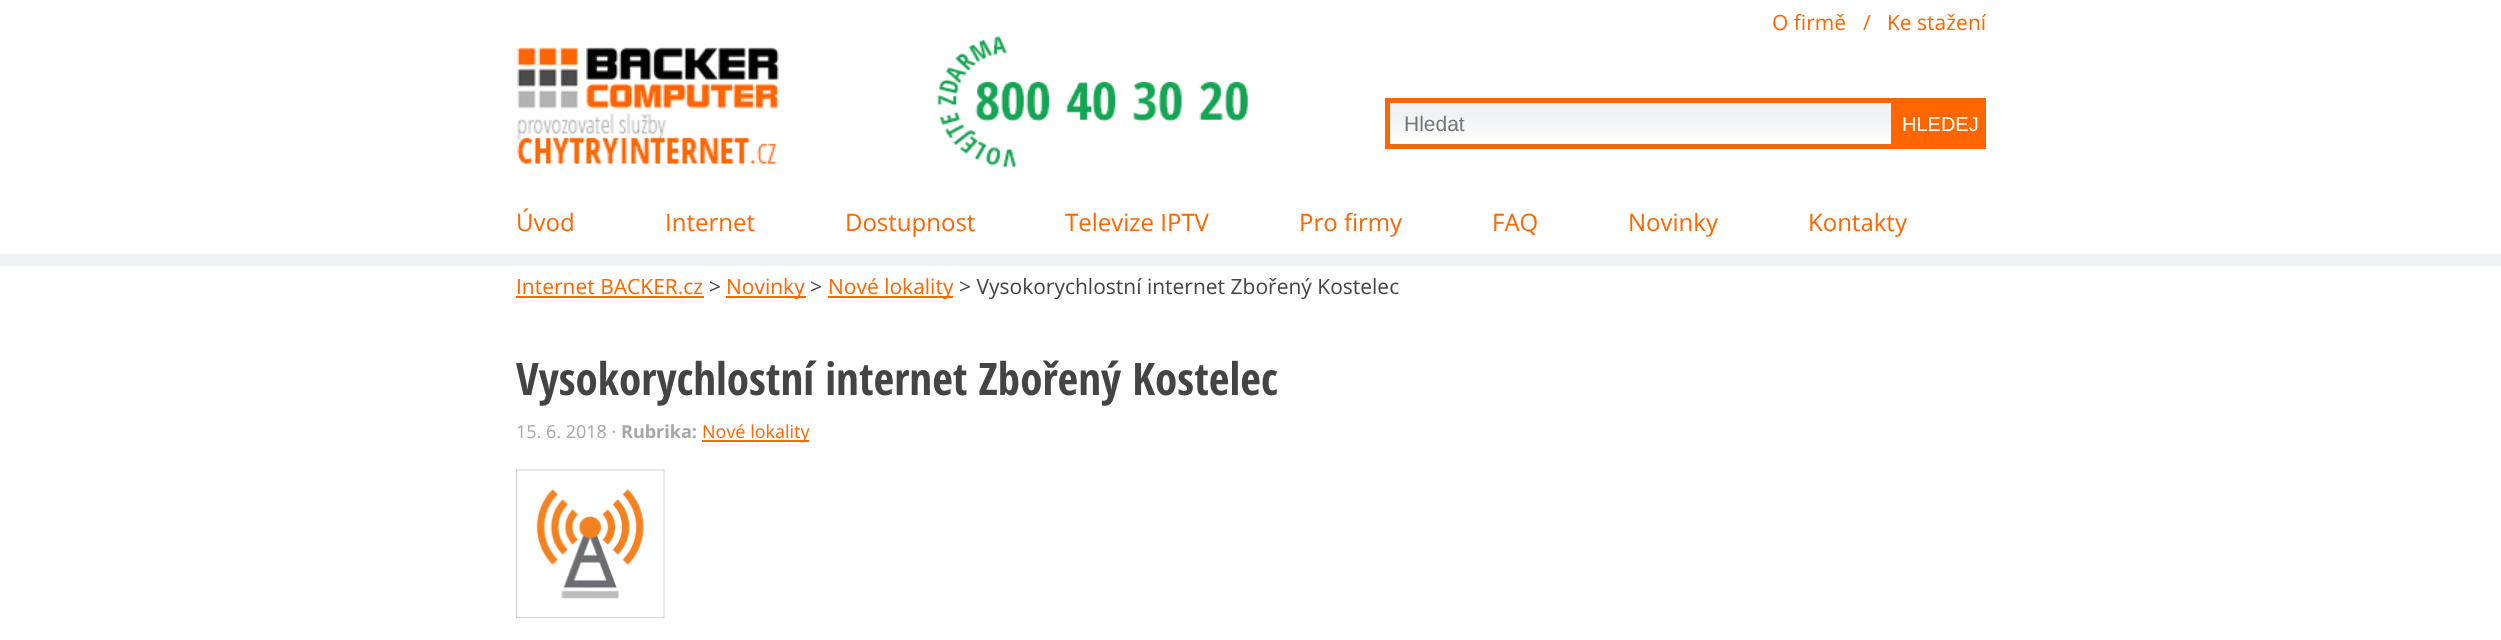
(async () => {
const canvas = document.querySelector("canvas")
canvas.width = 2501
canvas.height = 640
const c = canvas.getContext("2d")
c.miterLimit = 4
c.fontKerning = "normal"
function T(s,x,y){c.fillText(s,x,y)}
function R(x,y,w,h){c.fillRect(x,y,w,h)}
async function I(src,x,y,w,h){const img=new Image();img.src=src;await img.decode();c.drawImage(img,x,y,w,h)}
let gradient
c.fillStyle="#fff"
R(0,0,2501,640)
c.font="21px Open Sans"
c.fillStyle="#f60"
T("O firmě",1772,30)
T("/",1863,30)
T("Ke stažení",1887,30)
await I("1.png",517,47,262,117)
await I("2.png",937,36,311,131)
gradient = c.createLinearGradient(1640,102,1640,144)
gradient.addColorStop(.3,"#f0f1f2")
gradient.addColorStop(1,"#fefefe")
c.fillStyle = gradient
R(1390,103,501,38)
c.strokeStyle="#f60"
c.lineWidth=5
c.strokeRect(1387.5,100.5,506,46)
c.font="21px Liberation Sans"
c.fillStyle="#757575"
T("Hledat",1404,131)
c.fillStyle="#f60"
R(1896,98,90,51)
c.font="20px Liberation Sans"
c.fillStyle="#fff"
T("HLEDEJ",1902,131)
c.font="24px Open Sans"
c.fillStyle="#f60"
T("Úvod",516,231)
T("Internet",665,231)
T("Dostupnost",845,231)
T("Televize IPTV",1065,231)
T("Pro firmy",1299,231)
T("FAQ",1492,231)
T("Novinky",1628,231)
T("Kontakty",1808,231)
c.fillStyle="#f0f1f2"
R(0,254,2501,12)
c.font="21px Open Sans"
c.fillStyle="#f60"
T("Internet BACKER.cz",516,294)
R(516,296,188,2)
c.fillStyle="#444"
T(">",709,294)
c.fillStyle="#f60"
R(726,296,80,2)
T("Novinky",726,294)
c.fillStyle="#444"
T(">",810,294)
c.fillStyle="#f60"
R(828,296,125,2)
T("Nové lokality",828,294)
c.fillStyle="#444"
T("> Vysokorychlostní internet Zbořený Kostelec",959,294)
c.font="bold 45px Open Sans Condensed"
T("Vysokorychlostní internet Zbořený Kostelec",516,395)
c.font="18px Open Sans"
c.fillStyle="#a8a7a7"
T("15. 6. 2018 ·",516,438)
c.font="bold 18px Open Sans"
T("Rubrika:",621,438)
c.fillStyle="#f60"
R(702,440,107,2)
c.font="18px Open Sans"
T("Nové lokality",702,438)
await I("3.png",516,469,149,149)
})()
